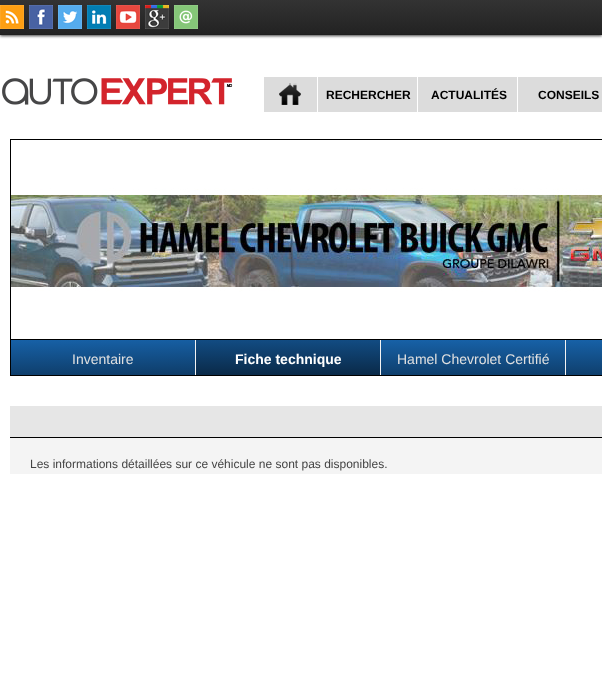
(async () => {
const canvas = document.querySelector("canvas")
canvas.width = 602
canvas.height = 700
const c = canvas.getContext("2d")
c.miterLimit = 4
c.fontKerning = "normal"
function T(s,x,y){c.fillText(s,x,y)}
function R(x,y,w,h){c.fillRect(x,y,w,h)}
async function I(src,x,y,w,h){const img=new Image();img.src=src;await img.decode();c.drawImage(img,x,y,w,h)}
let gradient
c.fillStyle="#fff"
R(0,0,602,700)
c.fillStyle="#000000bf"
c.filter="blur(1.5px)"
c.beginPath()
c.rect(0,1,602,35)
c.fill()
c.filter="none"
gradient = c.createLinearGradient(301,0,301,35)
gradient.addColorStop(0,"#333")
gradient.addColorStop(1,"#222")
c.fillStyle = gradient
R(0,0,602,34)
c.fillStyle="#1f1f1f"
R(0,34,602,1)
await I("1.png",0,5,24,24)
await I("2.png",29,5,24,24)
await I("3.png",58,5,24,24)
await I("4.png",87,5,24,24)
await I("5.png",116,5,24,24)
await I("6.png",145,5,24,24)
await I("7.png",174,5,24,24)
await I("8.png",2,78,231,27)
c.fillStyle="#dcdcdc"
R(264,77,338,35)
await I("9.png",279,83,22,22)
c.fillStyle="#fff"
R(317,77,1,35)
c.font="bold 12px Liberation Sans"
c.fillStyle="#000"
T("RECHERCHER",326,99)
c.fillStyle="#fff"
R(417,77,1,35)
c.fillStyle="#000"
T("ACTUALITÉS",431,99)
c.fillStyle="#fff"
R(517,77,1,35)
c.fillStyle="#000"
T("CONSEILS",538,99)
await I("10.png",11,140,591,199)
c.strokeStyle="#000"
c.strokeRect(10.5,139.5,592,200)
R(10,375,592,1)
R(10,340,1,36)
gradient = c.createLinearGradient(11,340,12,405)
gradient.addColorStop(0,"#1761a7")
gradient.addColorStop(1,"#08223b")
c.fillStyle = gradient
R(11,340,184,35)
c.fillStyle="#f3f3f3"
R(195,340,1,35)
c.font="14px Liberation Sans"
c.fillStyle="#e0e0e0"
T("Inventaire",72,364)
gradient = c.createLinearGradient(232,318,232,383)
gradient.addColorStop(0,"#1761a7")
gradient.addColorStop(1,"#08223b")
c.fillStyle = gradient
R(196,340,184,35)
c.fillStyle="#f3f3f3"
R(380,340,1,35)
c.font="bold 14px Liberation Sans"
c.fillStyle="#fff"
T("Fiche technique",235,364)
gradient = c.createLinearGradient(382,340,382,405)
gradient.addColorStop(0,"#1761a7")
gradient.addColorStop(1,"#08223b")
c.fillStyle = gradient
R(381,340,184,35)
c.fillStyle="#f3f3f3"
R(565,340,1,35)
c.font="14px Liberation Sans"
c.fillStyle="#e0e0e0"
T("Hamel Chevrolet Certifié",397,364)
gradient = c.createLinearGradient(567,340,567,405)
gradient.addColorStop(0,"#1761a7")
gradient.addColorStop(1,"#08223b")
c.fillStyle = gradient
R(566,340,36,35)
c.fillStyle="#e6e6e6"
R(10,406,592,31)
c.fillStyle="#000"
R(10,437,592,1)
c.fillStyle="#f4f4f4"
R(10,438,592,36)
c.font="12px Liberation Sans"
c.fillStyle="#444"
T("Les informations détaillées sur ce véhicule ne sont pas disponibles.",30,468)
})()
